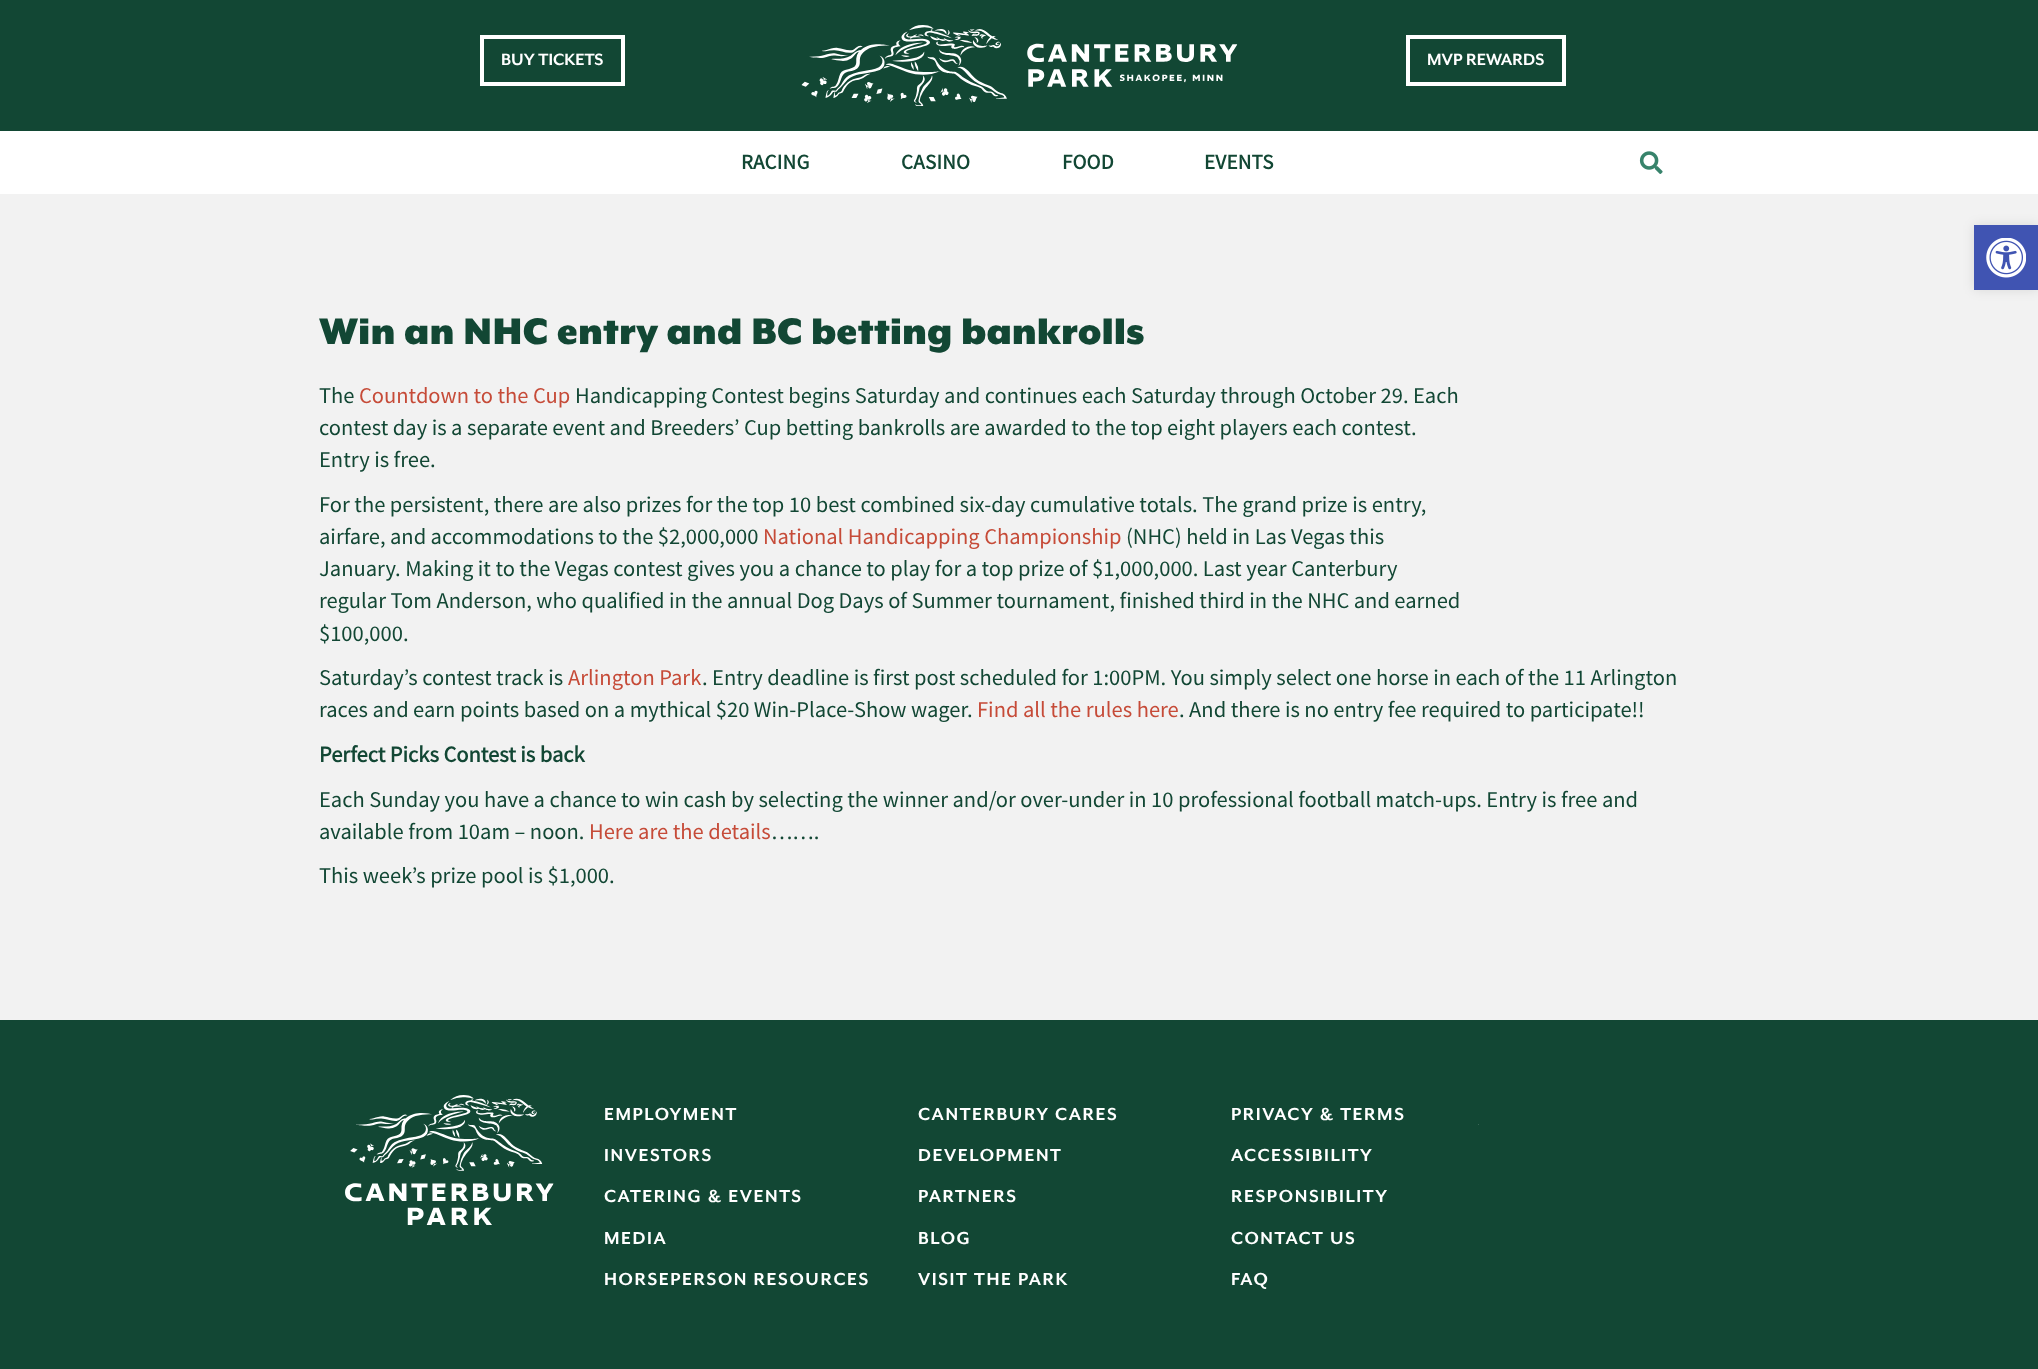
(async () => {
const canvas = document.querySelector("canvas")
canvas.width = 2038
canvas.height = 1369
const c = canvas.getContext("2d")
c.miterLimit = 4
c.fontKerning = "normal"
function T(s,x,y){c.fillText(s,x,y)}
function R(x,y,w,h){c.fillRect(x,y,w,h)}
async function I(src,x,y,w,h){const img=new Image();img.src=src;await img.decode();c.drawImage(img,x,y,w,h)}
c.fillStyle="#fff"
R(0,0,2038,1369)
c.fillStyle="#124734"
R(0,0,2038,131)
c.strokeStyle="#fff"
c.lineWidth=4
c.strokeRect(482,37,141,47)
c.font="bold 18.75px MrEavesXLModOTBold"
c.fillStyle="#fff"
T("BUY TICKETS",501,65)
await I("1.png",801,25,437,81)
c.strokeRect(1408,37,156,47)
T("MVP REWARDS",1427,65)
c.letterSpacing="0.25px"
c.font="bold 21px Source Sans Pro"
c.fillStyle="#124734"
T("RACING",741,169)
T("CASINO",901,169)
T("FOOD",1062,169)
T("EVENTS",1204,169)
await I("2.png",1639,151,24,23)
c.fillStyle="#f2f2f2"
R(0,194,2038,826)
c.fillStyle="#0000001a"
c.filter="blur(6px)"
c.beginPath()
c.rect(1974,225,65,65)
c.fill()
c.filter="none"
c.fillStyle="#4054b2"
R(1974,225,64,65)
await I("3.png",1986,238,40,40)
c.letterSpacing="0px"
c.font="42.5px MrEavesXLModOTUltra"
c.fillStyle="#124734"
T("Win an NHC entry and BC betting bankrolls",319,344)
c.font="22.5px Source Sans Pro"
T("The",319,403)
c.fillStyle="#c64b38"
T("Countdown to the Cup",359,403)
c.fillStyle="#124734"
T("Handicapping Contest begins Saturday and continues each Saturday through October 29. Each",575,403)
T("contest day is a separate event and Breeders’ Cup betting bankrolls are awarded to the top eight players each contest.",319,435)
T("Entry is free.",319,467)
T("For the persistent, there are also prizes for the top 10 best combined six-day cumulative totals. The grand prize is entry,",319,512)
T("airfare, and accommodations to the $2,000,000",319,544)
c.fillStyle="#c64b38"
T("National Handicapping Championship",763,544)
c.fillStyle="#124734"
T("(NHC) held in Las Vegas this",1126,544)
T("January. Making it to the Vegas contest gives you a chance to play for a top prize of $1,000,000. Last year Canterbury",319,576)
T("regular Tom Anderson, who qualified in the annual Dog Days of Summer tournament, finished third in the NHC and earned",319,608)
T("$100,000.",319,641)
T("Saturday’s contest track is",319,685)
c.fillStyle="#c64b38"
T("Arlington Park",568,685)
c.fillStyle="#124734"
T(". Entry deadline is first post scheduled for 1:00PM. You simply select one horse in each of the 11 Arlington",702,685)
T("races and earn points based on a mythical $20 Win-Place-Show wager.",319,717)
c.fillStyle="#c64b38"
T("Find all the rules here",977,717)
c.fillStyle="#124734"
T(". And there is no entry fee required to participate!!",1179,717)
c.font="bold 22.5px Source Sans Pro"
T("Perfect Picks Contest is back",319,762)
c.font="22.5px Source Sans Pro"
T("Each Sunday you have a chance to win cash by selecting the winner and/or over-under in 10 professional football match-ups. Entry is free and",319,807)
T("available from 10am – noon.",319,839)
c.fillStyle="#c64b38"
T("Here are the details",589,839)
c.fillStyle="#124734"
T("…….",771,839)
T("This week’s prize pool is $1,000.",319,883)
R(0,1020,2038,349)
await I("4.png",345,1095,209,130)
c.letterSpacing="1.6px"
c.font="bold 20px MrEavesXLModOTBold"
c.fillStyle="#fff"
T("EMPLOYMENT",604,1120)
T("INVESTORS",604,1161)
T("CATERING & EVENTS",604,1202)
T("MEDIA",604,1244)
T("HORSEPERSON RESOURCES",604,1285)
T("CANTERBURY CARES",918,1120)
T("DEVELOPMENT",918,1161)
T("PARTNERS",918,1202)
T("BLOG",918,1244)
T("VISIT THE PARK",918,1285)
T("PRIVACY & TERMS",1231,1120)
T("ACCESSIBILITY",1231,1161)
T("RESPONSIBILITY",1231,1202)
T("CONTACT US",1231,1244)
T("FAQ",1231,1285)
c.fillStyle="#3a6657"
R(1478,1124,1,1)
})()
